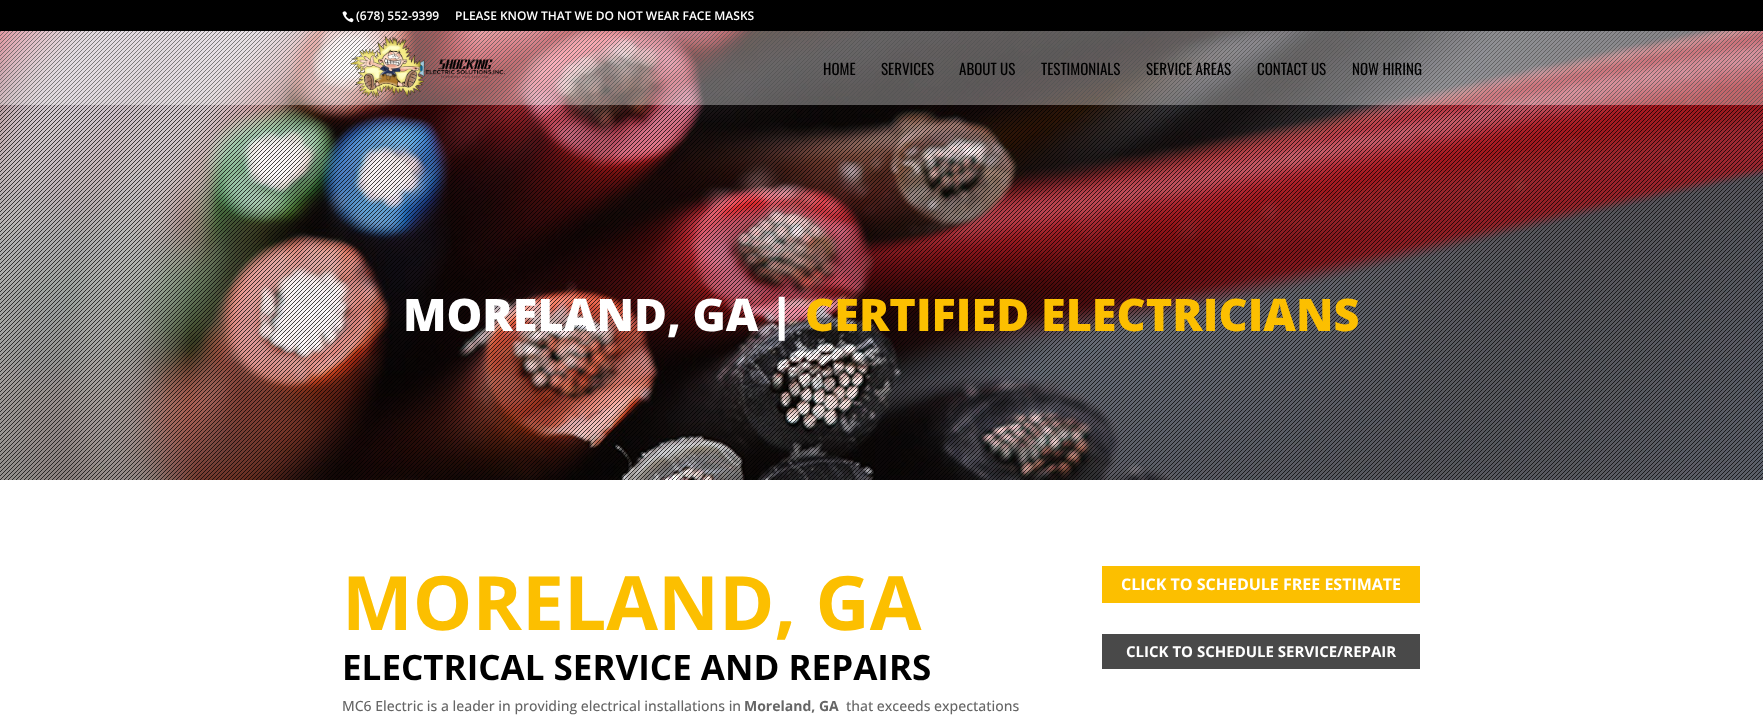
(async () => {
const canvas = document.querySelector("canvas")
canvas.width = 1763
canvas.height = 719
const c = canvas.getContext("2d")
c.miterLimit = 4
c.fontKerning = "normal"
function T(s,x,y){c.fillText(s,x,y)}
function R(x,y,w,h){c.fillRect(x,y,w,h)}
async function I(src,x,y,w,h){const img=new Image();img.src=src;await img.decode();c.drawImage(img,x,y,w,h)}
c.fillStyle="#fff"
R(0,0,1763,719)
c.fillStyle="#000"
R(0,0,1763,31)
await I("1.png",342,11,12,12)
c.font="600 12px Open Sans"
c.fillStyle="#fff"
T("(678) 552-9399",356,20)
T("PLEASE KNOW THAT WE DO NOT WEAR FACE MASKS",455,20)
await I("3.png",0,31,1763,449)
await I("4.png",0,31,1763,449)
c.fillStyle="#ffffff54"
R(0,31,1763,74)
await I("2.png",350,36,155,62)
c.font="15px Oswald"
c.fillStyle="#000"
T("HOME",823,75)
T("SERVICES",881,75)
T("ABOUT US",959,75)
T("TESTIMONIALS",1041,75)
T("SERVICE AREAS",1146,75)
T("CONTACT US",1257,75)
T("NOW HIRING",1352,75)
c.font="800 45px Open Sans"
c.fillStyle="#fff"
T("MORELAND, GA |",403,331)
c.fillStyle="#fcbf00"
T("CERTIFIED ELECTRICIANS",805,331)
c.font="bold 75px Open Sans"
T("MORELAND, GA",342,630)
c.font="bold 35px Open Sans"
c.fillStyle="#000"
T("ELECTRICAL SERVICE AND REPAIRS",342,680)
c.font="500 14px Open Sans"
c.fillStyle="#666"
T("MC6 Electric is a leader in providing electrical installations in",342,711)
c.font="bold 14px Open Sans"
T("Moreland, GA",744,711)
c.font="500 14px Open Sans"
T("that exceeds expectations",846,711)
c.fillStyle="#fcbf00"
R(1102,566,318,37)
c.font="bold 16px Open Sans"
c.fillStyle="#fff"
T("CLICK TO SCHEDULE FREE ESTIMATE",1121,590)
c.fillStyle="#494949"
R(1102,634,318,35)
c.font="bold 15px Open Sans"
c.fillStyle="#fff"
T("CLICK TO SCHEDULE SERVICE/REPAIR",1126,657)
})()
